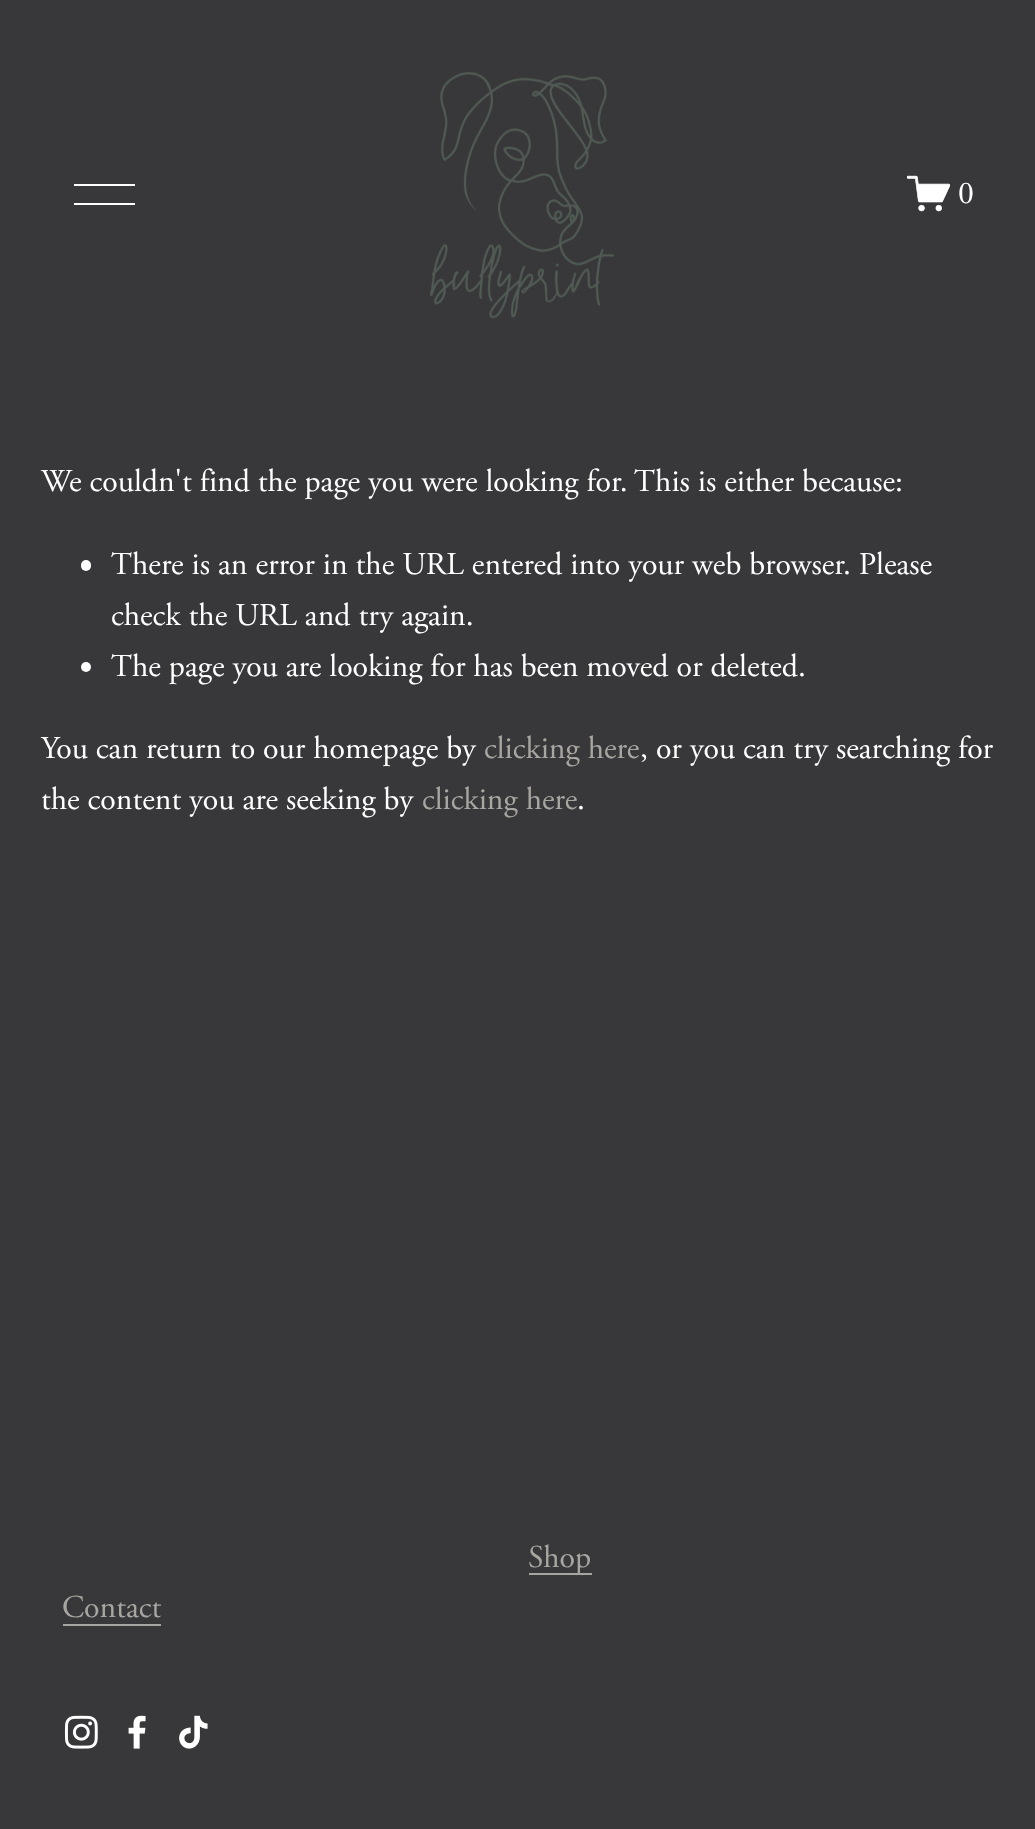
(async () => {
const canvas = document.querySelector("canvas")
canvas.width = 1035
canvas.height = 1829
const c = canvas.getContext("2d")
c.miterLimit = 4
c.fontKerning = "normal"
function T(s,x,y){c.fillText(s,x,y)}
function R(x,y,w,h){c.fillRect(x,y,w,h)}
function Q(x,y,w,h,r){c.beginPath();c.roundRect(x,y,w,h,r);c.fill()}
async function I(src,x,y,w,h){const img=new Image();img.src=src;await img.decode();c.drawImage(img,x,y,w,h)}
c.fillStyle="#38383b"
R(0,0,1035,1829)
c.fillStyle="#fff"
R(74,184,61,2)
R(74,203,61,2)
await I("1.png",430,72,185,247)
await I("2.png",907,175,43,37)
c.font="31.75px Adobe Garamond"
T("0",958,203)
T("We couldn't find the page you were looking for. This is either because:",41,491)
Q(81,560,10,11,5)
T("There is an error in the URL entered into your web browser. Please",111,574)
T("check the URL and try again.",111,625)
c.beginPath()
c.arc(86,667,5,0,7)
c.fill()
T("The page you are looking for has been moved or deleted.",111,676)
T("You can return to our homepage by",41,758)
c.fillStyle="#a8a6a1"
T("clicking here",484,758)
c.fillStyle="#fff"
T(", or you can try searching for",640,758)
T("the content you are seeking by",41,809)
c.fillStyle="#a8a6a1"
T("clicking here",422,809)
c.fillStyle="#fff"
T(".",577,809)
c.fillStyle="#a8a6a1"
R(529,1573,63,2)
T("Shop",528,1567)
T("Contact",62,1617)
R(63,1624,98,2)
await I("3.png",64,1715,34,34)
await I("4.png",128,1715,18,34)
await I("5.png",179,1715,29,34)
})()
